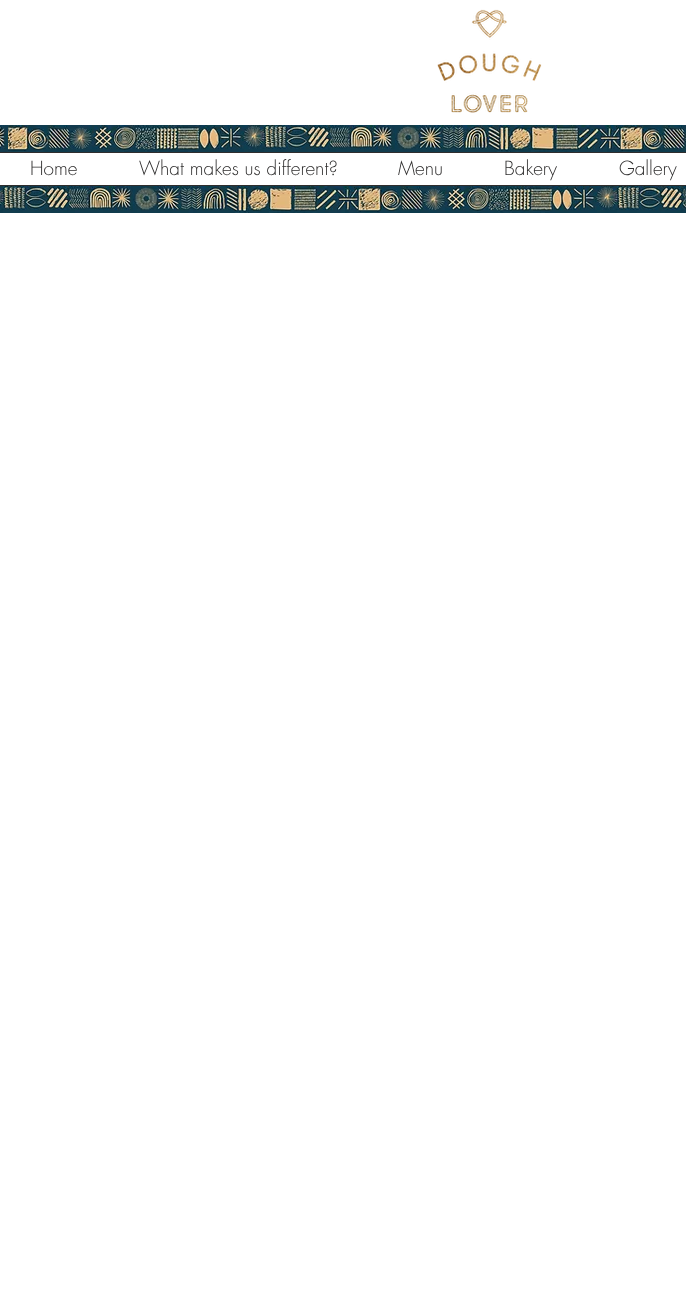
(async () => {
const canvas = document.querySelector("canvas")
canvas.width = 686
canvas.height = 1290
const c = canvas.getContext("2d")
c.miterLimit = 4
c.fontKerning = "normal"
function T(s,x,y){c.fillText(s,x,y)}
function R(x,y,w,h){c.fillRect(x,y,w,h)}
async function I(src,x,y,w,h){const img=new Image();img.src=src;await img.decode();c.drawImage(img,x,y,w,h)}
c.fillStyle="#fff"
R(0,0,686,1290)
await I("1.png",437,9,105,104)
await I("2.png",0,125,395,27)
await I("3.png",0,125,8,26)
await I("4.png",395,125,291,27)
c.fillStyle="#2f2e2e"
R(0,152,686,1)
R(0,185,686,1)
c.font="300 19px futura"
T("Home",30,175)
T("What makes us different?",139,175)
T("Menu",398,175)
T("Bakery",504,175)
T("Gallery",619,175)
await I("5.png",0,186,133,27)
await I("6.png",133,186,553,27)
})()
